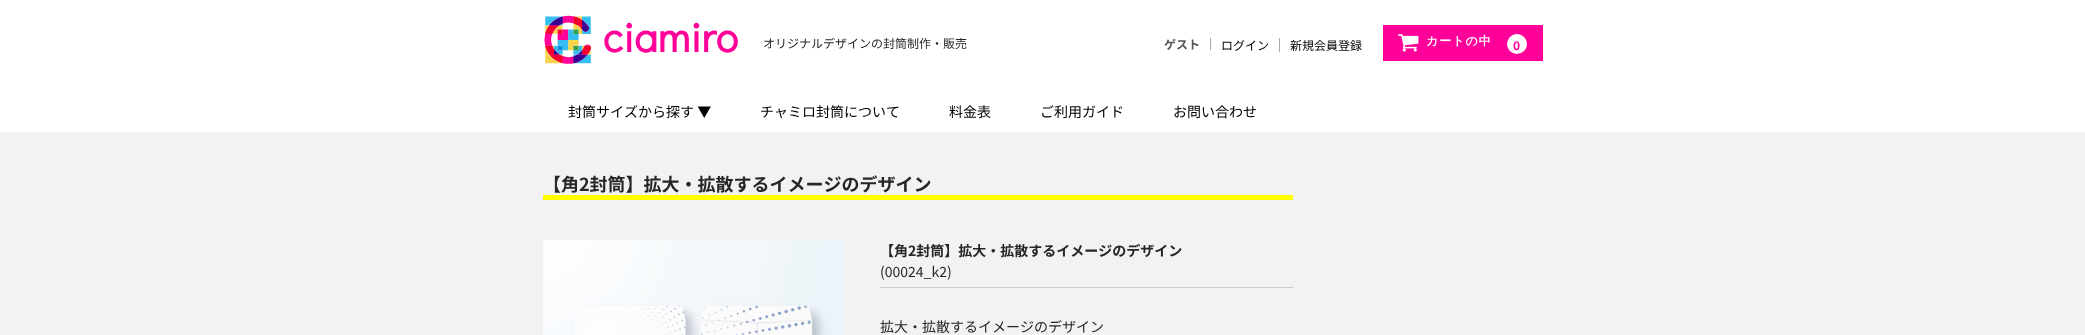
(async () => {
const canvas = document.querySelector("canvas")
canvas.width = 2085
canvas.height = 335
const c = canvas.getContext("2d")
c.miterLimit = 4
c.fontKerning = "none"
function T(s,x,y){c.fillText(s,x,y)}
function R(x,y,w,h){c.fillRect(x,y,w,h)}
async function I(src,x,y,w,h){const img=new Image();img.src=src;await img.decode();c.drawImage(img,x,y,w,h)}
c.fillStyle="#f2f2f2"
R(0,0,2085,335)
c.fillStyle="#fff"
R(0,0,2085,132)
await I("1.png",544,15,47,49)
c.font="bold 42px Didact Gothic"
c.fillStyle="#f09"
T("ciamiro",603,52)
c.font="12px Noto Sans JP"
c.fillStyle="#262626"
T("オリジナルデザインの封筒制作・販売",763,48)
c.fillStyle="#aaa"
R(1210,38,1,12)
c.font="bold 12px Noto Sans JP"
c.fillStyle="#565656"
T("ゲスト",1164,49)
c.fillStyle="#aaa"
R(1279,38,1,14)
c.font="12px Noto Sans JP"
c.fillStyle="#000"
T("ログイン",1221,50)
T("新規会員登録",1290,50)
c.fillStyle="#f09"
R(1383,25,160,36)
await I("2.png",1398,34,21,18)
c.letterSpacing="1px"
c.font="bold 12px WenQuanYi Zen Hei"
c.fillStyle="#fff"
T("カートの中",1426,45)
c.beginPath()
c.arc(1517,44,10,0,7)
c.fill()
c.font="bold 12px Noto Sans JP"
c.fillStyle="#f09"
T("0",1513,50)
c.letterSpacing="0px"
c.font="14px Noto Sans JP"
c.fillStyle="#000"
T("封筒サイズから探す ▼",568,117)
T("チャミロ封筒について",760,117)
T("料金表",949,117)
T("ご利用ガイド",1040,117)
T("お問い合わせ",1173,117)
c.fillStyle="#ff0"
R(543,195,750,5)
c.font="bold 18px Noto Sans JP"
c.fillStyle="#262626"
T("【角2封筒】拡大・拡散するイメージのデザイン",543,191)
await I("3.png",543,240,300,95)
c.font="bold 14px Noto Sans JP"
T("【角2封筒】拡大・拡散するイメージのデザイン",880,256)
c.fillStyle="#ccc"
R(880,287,413,1)
c.font="14px Noto Sans JP"
c.fillStyle="#262626"
T("(00024_k2)",880,277)
T("拡大・拡散するイメージのデザイン",880,332)
})()
